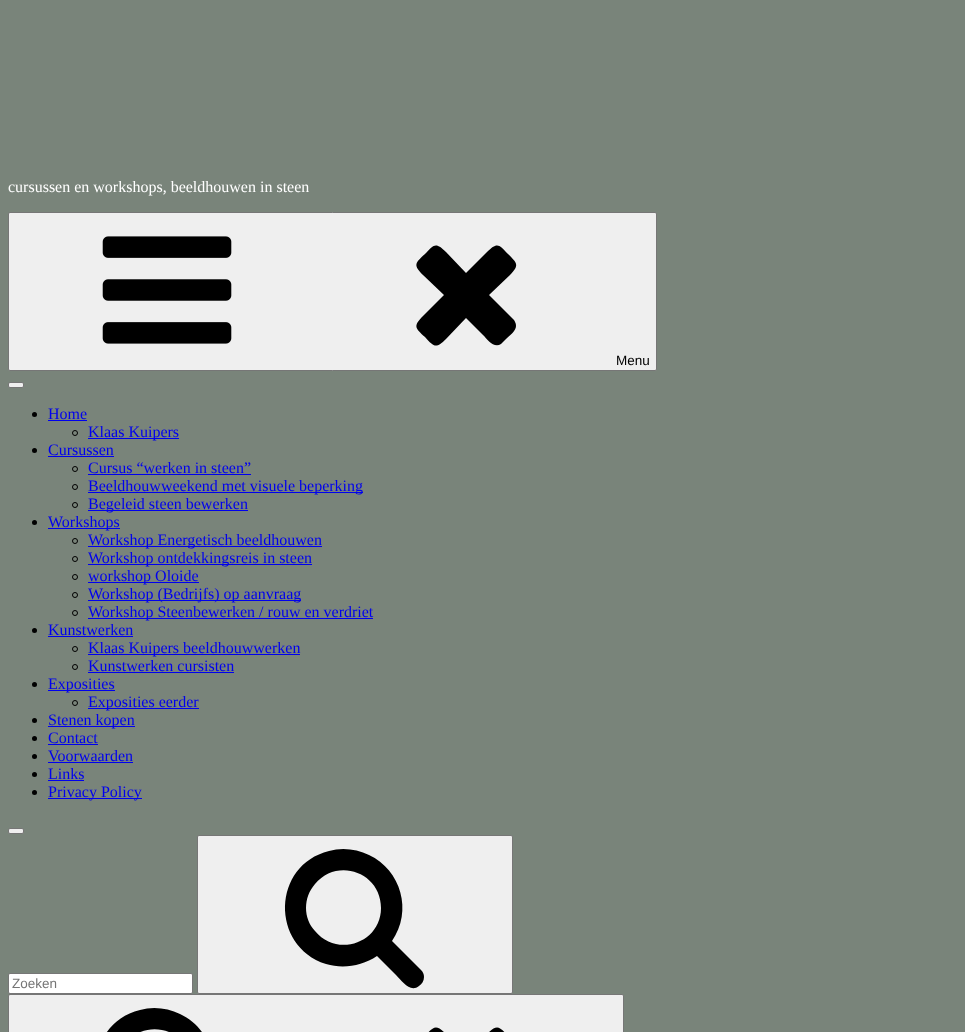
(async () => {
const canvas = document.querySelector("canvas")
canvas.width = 965
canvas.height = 1032
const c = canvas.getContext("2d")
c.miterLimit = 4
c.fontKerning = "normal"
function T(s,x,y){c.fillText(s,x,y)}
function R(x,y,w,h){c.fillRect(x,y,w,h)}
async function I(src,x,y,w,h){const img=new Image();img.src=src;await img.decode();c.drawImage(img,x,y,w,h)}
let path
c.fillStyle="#79847a"
R(0,0,965,1032)
c.font="16px Liberation Serif"
c.fillStyle="#fff"
T("cursussen en workshops, beeldhouwen in steen",8,192)
c.fillStyle="#efefef"
c.beginPath()
c.roundRect(8.5,212.5,648,158,1.5)
c.fill()
c.strokeStyle="#767676"
c.stroke()
await I("1.png",102,236,130,108)
c.fillStyle="#000"
path = new Path2D("M516 326c0 5-6 9-10 13l-5 5c-7 5-14-5-18-9l-17-17l-20 21c-10 10-12 8-21-2c-10-9-12-11-2-21l21-21l-21-20c-10-10-8-12 2-21c9-10 11-12 21-2l20 21l21-21c10-10 12-8 21 2c9 9 12 11 2 21l-21 20l25 25c1 2 2 3 2 6z")
c.fill(path)
c.font="13.5px Liberation Sans"
T("Menu",616,365)
c.fillStyle="#efefef"
c.beginPath()
c.roundRect(8.5,382.5,15,5,1.5)
c.fill()
c.stroke()
c.fillStyle="#000"
c.beginPath()
c.arc(34.5,414.5,2.5,0,7)
c.fill()
c.font="16px Liberation Serif"
c.fillStyle="#00e"
T("Home",48,419)
R(48,420,39,1)
c.beginPath()
c.arc(75,433,2.5,0,7)
c.strokeStyle="#000"
c.stroke()
R(88,438,91,1)
T("Klaas Kuipers",88,437)
c.fillStyle="#000"
c.beginPath()
c.arc(34.5,450.5,2.5,0,7)
c.fill()
c.fillStyle="#00e"
T("Cursussen",48,455)
R(48,456,66,1)
c.beginPath()
c.arc(75,469,2.5,0,7)
c.stroke()
T("Cursus “werken in steen”",88,473)
R(88,474,163,1)
c.beginPath()
c.arc(75,487,2.5,0,7)
c.stroke()
R(88,492,275,1)
T("Beeldhouwweekend met visuele beperking",88,491)
c.beginPath()
c.arc(75,505,2.5,0,7)
c.stroke()
R(88,510,160,1)
T("Begeleid steen bewerken",88,509)
c.fillStyle="#000"
c.beginPath()
c.arc(34.5,522.5,2.5,0,7)
c.fill()
c.fillStyle="#00e"
R(48,528,72,1)
T("Workshops",48,527)
c.beginPath()
c.arc(75,541,2.5,0,7)
c.stroke()
R(88,546,234,1)
T("Workshop Energetisch beeldhouwen",88,545)
c.beginPath()
c.arc(75,559,2.5,0,7)
c.stroke()
R(88,564,224,1)
T("Workshop ontdekkingsreis in steen",88,563)
c.beginPath()
c.arc(75,577,2.5,0,7)
c.stroke()
R(88,582,111,1)
T("workshop Oloide",88,581)
c.beginPath()
c.arc(75,595,2.5,0,7)
c.stroke()
R(88,600,213,1)
T("Workshop (Bedrijfs) op aanvraag",88,599)
c.beginPath()
c.arc(75,613,2.5,0,7)
c.stroke()
R(88,618,285,1)
T("Workshop Steenbewerken / rouw en verdriet",88,617)
c.fillStyle="#000"
c.beginPath()
c.arc(34.5,630.5,2.5,0,7)
c.fill()
c.fillStyle="#00e"
T("Kunstwerken",48,635)
R(48,636,85,1)
c.beginPath()
c.arc(75,649,2.5,0,7)
c.stroke()
R(88,654,212,1)
T("Klaas Kuipers beeldhouwwerken",88,653)
c.beginPath()
c.arc(75,667,2.5,0,7)
c.stroke()
T("Kunstwerken cursisten",88,671)
R(88,672,146,1)
c.fillStyle="#000"
c.beginPath()
c.arc(34.5,684.5,2.5,0,7)
c.fill()
c.fillStyle="#00e"
R(48,690,67,1)
T("Exposities",48,689)
c.beginPath()
c.arc(75,703,2.5,0,7)
c.stroke()
R(88,708,111,1)
T("Exposities eerder",88,707)
c.fillStyle="#000"
c.beginPath()
c.arc(34.5,720.5,2.5,0,7)
c.fill()
c.fillStyle="#00e"
R(48,726,87,1)
T("Stenen kopen",48,725)
c.fillStyle="#000"
c.beginPath()
c.arc(34.5,738.5,2.5,0,7)
c.fill()
c.fillStyle="#00e"
T("Contact",48,743)
R(48,744,50,1)
c.fillStyle="#000"
c.beginPath()
c.arc(34.5,756.5,2.5,0,7)
c.fill()
c.fillStyle="#00e"
T("Voorwaarden",48,761)
R(48,762,85,1)
c.fillStyle="#000"
c.beginPath()
c.arc(34.5,774.5,2.5,0,7)
c.fill()
c.fillStyle="#00e"
T("Links",48,779)
R(48,780,36,1)
c.fillStyle="#000"
c.beginPath()
c.arc(34.5,792.5,2.5,0,7)
c.fill()
c.fillStyle="#00e"
R(48,798,94,1)
T("Privacy Policy",48,797)
c.fillStyle="#efefef"
c.beginPath()
c.roundRect(8.5,828.5,15,5,1.5)
c.fill()
c.strokeStyle="#767676"
c.stroke()
c.fillStyle="#fff"
c.beginPath()
c.roundRect(8.5,973.5,184,20,1.5)
c.fill()
c.stroke()
c.font="13.5px Liberation Sans"
c.fillStyle="#757575"
T("Zoeken",12,988)
c.fillStyle="#efefef"
c.beginPath()
c.roundRect(197.5,835.5,315,158,1.5)
c.fill()
c.stroke()
c.fillStyle="#000"
path = new Path2D("M381 908c0-36-44-51-66-24c-6 7-9 15-9 24c0 8 3 17 9 23c22 27 66 12 66-23zm43 69c0 4-2 7-5 9c-9 7-17-5-23-11l-19-19c-15 10-34 13-51 8c-56-18-54-99 3-113c13-4 28-2 40 4c32 15 44 56 23 86l29 29c2 2 3 4 3 7z")
c.fill(path)
c.fillStyle="#efefef"
c.beginPath()
c.roundRect(8.5,994.5,615,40,1.5)
c.fill()
c.stroke()
c.fillStyle="#000"
path = new Path2D("M192 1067c0-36-44-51-66-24c-6 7-9 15-9 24c0 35 44 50 67 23c5-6 8-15 8-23zm43 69c0 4-2 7-5 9c-9 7-17-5-23-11l-19-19c-15 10-34 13-51 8c-56-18-54-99 3-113c13-4 28-2 40 4c32 15 44 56 23 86l29 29c2 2 3 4 3 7z")
c.fill(path)
path = new Path2D("M516 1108c0 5-6 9-10 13l-5 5c-7 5-14-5-18-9l-17-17l-20 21c-10 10-12 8-21-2c-10-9-12-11-2-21l21-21l-21-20c-10-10-8-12 2-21c9-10 11-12 21-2l20 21l21-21c10-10 12-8 21 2c9 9 12 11 2 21l-21 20l25 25c1 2 2 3 2 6z")
c.fill(path)
})()
